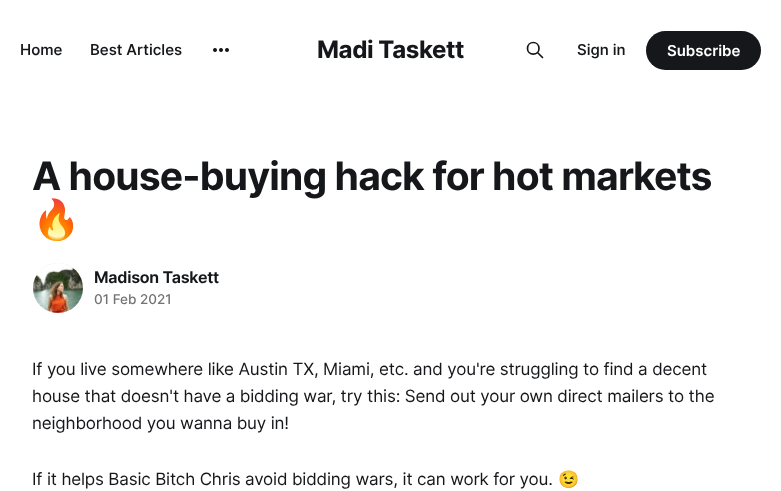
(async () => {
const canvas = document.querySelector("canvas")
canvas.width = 781
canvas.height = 491
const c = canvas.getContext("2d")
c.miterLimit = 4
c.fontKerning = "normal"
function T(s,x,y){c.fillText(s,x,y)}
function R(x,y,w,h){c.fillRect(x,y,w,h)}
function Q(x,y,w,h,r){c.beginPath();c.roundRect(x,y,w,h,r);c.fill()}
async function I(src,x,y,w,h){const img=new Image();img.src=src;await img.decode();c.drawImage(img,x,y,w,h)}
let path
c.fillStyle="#fff"
R(0,0,781,491)
c.font="500 15px Inter"
c.fillStyle="#15171a"
T("Home",20,55)
T("Best Articles",90,55)
await I("1.png",213,48,16,4)
c.letterSpacing="-0.4px"
c.font="bold 24px 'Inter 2'"
T("Madi Taskett",317,58)
path = new Path2D("M542.5 57.5l-5-5m1.5-4c0 7.5-11.5 7.5-11.5 0c0-8 11.5-8 11.5 0z")
c.strokeStyle="#15171a"
c.lineWidth=1.7
c.lineCap="round"
c.lineJoin="round"
c.stroke(path)
c.letterSpacing="0px"
c.font="500 15px Inter"
T("Sign in",577,55)
Q(646,31,115,39,19.5)
c.font="600 15px Inter"
c.fillStyle="#fff"
T("Subscribe",667,56)
c.letterSpacing="-0.85px"
c.font="bold 39.1px Inter"
c.fillStyle="#15171a"
T("A house-buying hack for hot markets",32,190)
c.font="bold 39.1px Noto Color Emoji"
T("🔥",32,233)
c.fillStyle="#e6e6e6"
c.beginPath()
c.arc(58,288,26.5,0,7)
c.fill()
c.strokeStyle="#fff"
c.lineWidth=3
c.stroke()
await I("2.png",33,263,50,50)
c.letterSpacing="-0.25px"
c.font="600 16px 'Inter 2'"
c.fillStyle="#15171a"
T("Madison Taskett",94,283)
c.letterSpacing="0px"
c.font="500 13.5px 'Inter 2'"
c.fillStyle="#737373"
T("01 Feb 2021",94,304)
c.letterSpacing="-0.17px"
c.font="17px Inter"
c.fillStyle="#15171a"
T("If you live somewhere like Austin TX, Miami, etc. and you're struggling to find a decent",32,375)
T("house that doesn't have a bidding war, try this: Send out your own direct mailers to the",32,402)
T("neighborhood you wanna buy in!",32,429)
T("If it helps Basic Bitch Chris avoid bidding wars, it can work for you.",32,485)
c.font="17px Noto Color Emoji"
T("😉",558,485)
})()
